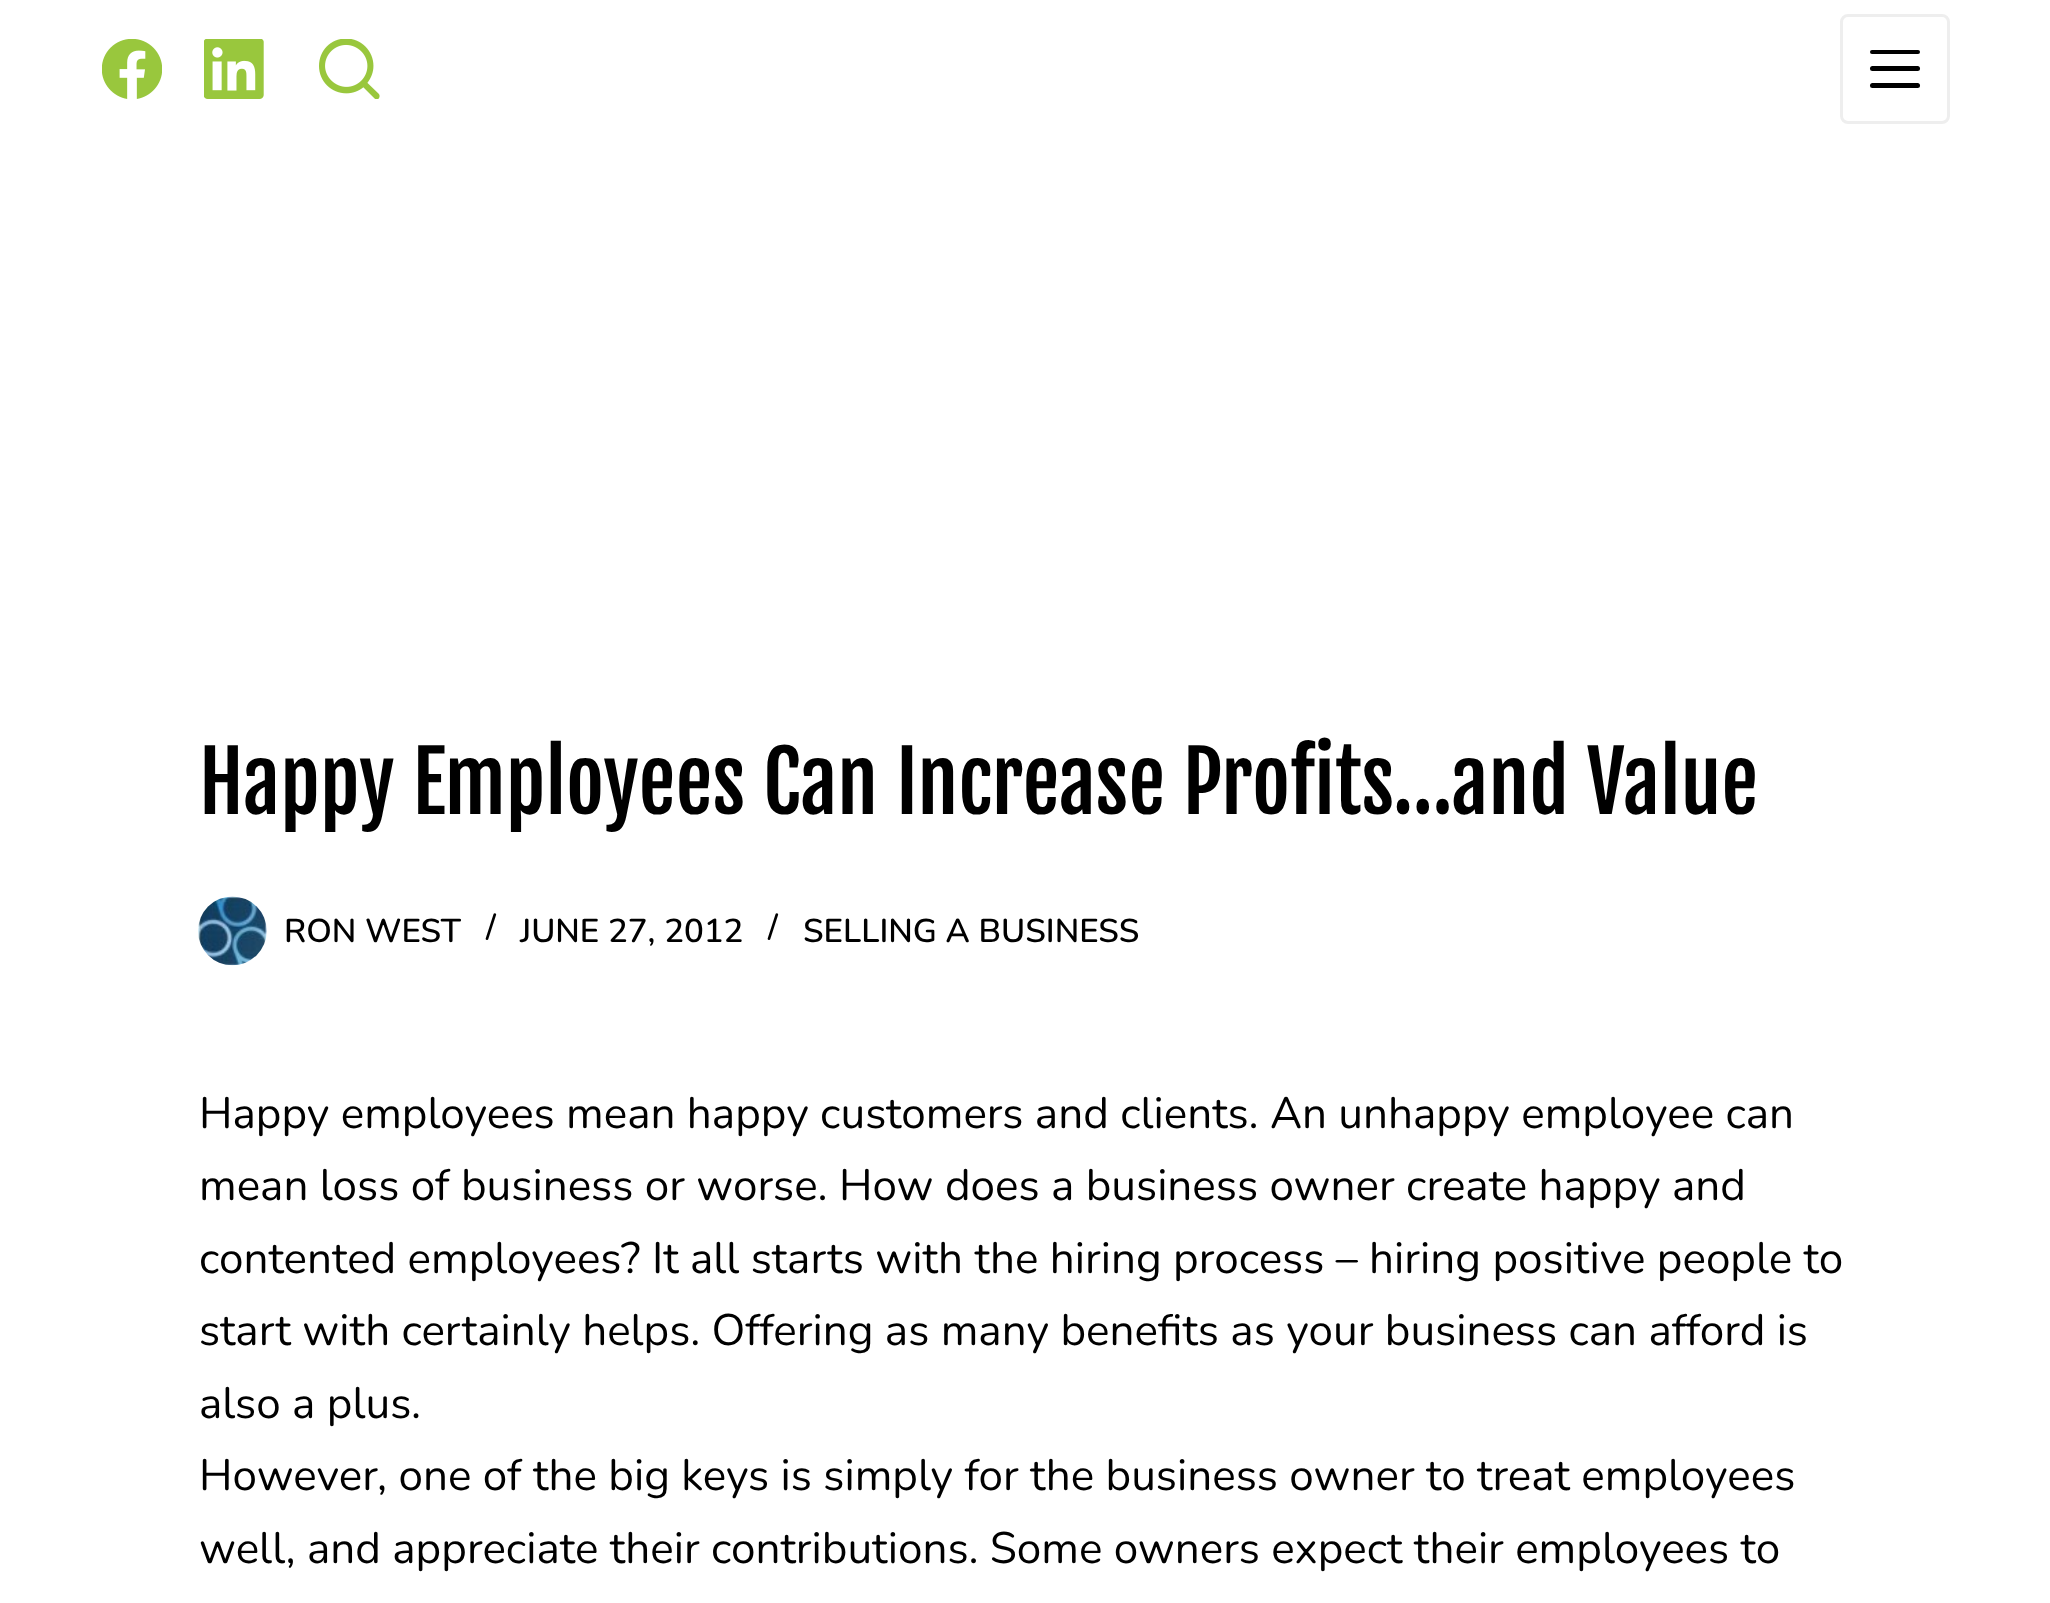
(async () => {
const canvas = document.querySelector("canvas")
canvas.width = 2050
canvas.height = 1603
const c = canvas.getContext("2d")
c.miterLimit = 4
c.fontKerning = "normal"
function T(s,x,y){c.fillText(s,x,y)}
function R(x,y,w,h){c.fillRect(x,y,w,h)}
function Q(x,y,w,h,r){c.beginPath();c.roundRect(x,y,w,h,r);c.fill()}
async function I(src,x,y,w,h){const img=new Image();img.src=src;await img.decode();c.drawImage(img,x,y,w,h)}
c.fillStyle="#fff"
R(0,0,2050,1603)
await I("1.png",102,39,60,60)
await I("2.png",204,39,60,60)
await I("3.png",319,39,61,60)
c.beginPath()
c.roundRect(1841.5,15.5,107,107,6.5)
c.strokeStyle="#eee"
c.lineWidth=3
c.stroke()
c.fillStyle="#000"
Q(1870,50,50,4,2)
Q(1870,66,50,5,2.5)
Q(1870,83,50,5,2.5)
c.font="82.5px Fjalla One"
T("Happy Employees Can Increase Profits…and Value",199,814)
await I("4.png",198,896,69,70)
c.font="600 33px Nunito"
T("RON WEST",284,942)
T("/",486,938)
T("JUNE 27, 2012",520,942)
T("/",768,938)
T("SELLING A BUSINESS",803,942)
c.font="44px Nunito"
T("Happy employees mean happy customers and clients. An unhappy employee can",199,1128)
T("mean loss of business or worse. How does a business owner create happy and",199,1200)
T("contented employees? It all starts with the hiring process – hiring positive people to",199,1273)
T("start with certainly helps. Offering as many benefits as your business can afford is",199,1345)
T("also a plus.",199,1418)
T("However, one of the big keys is simply for the business owner to treat employees",199,1490)
T("well, and appreciate their contributions. Some owners expect their employees to",199,1563)
})()
